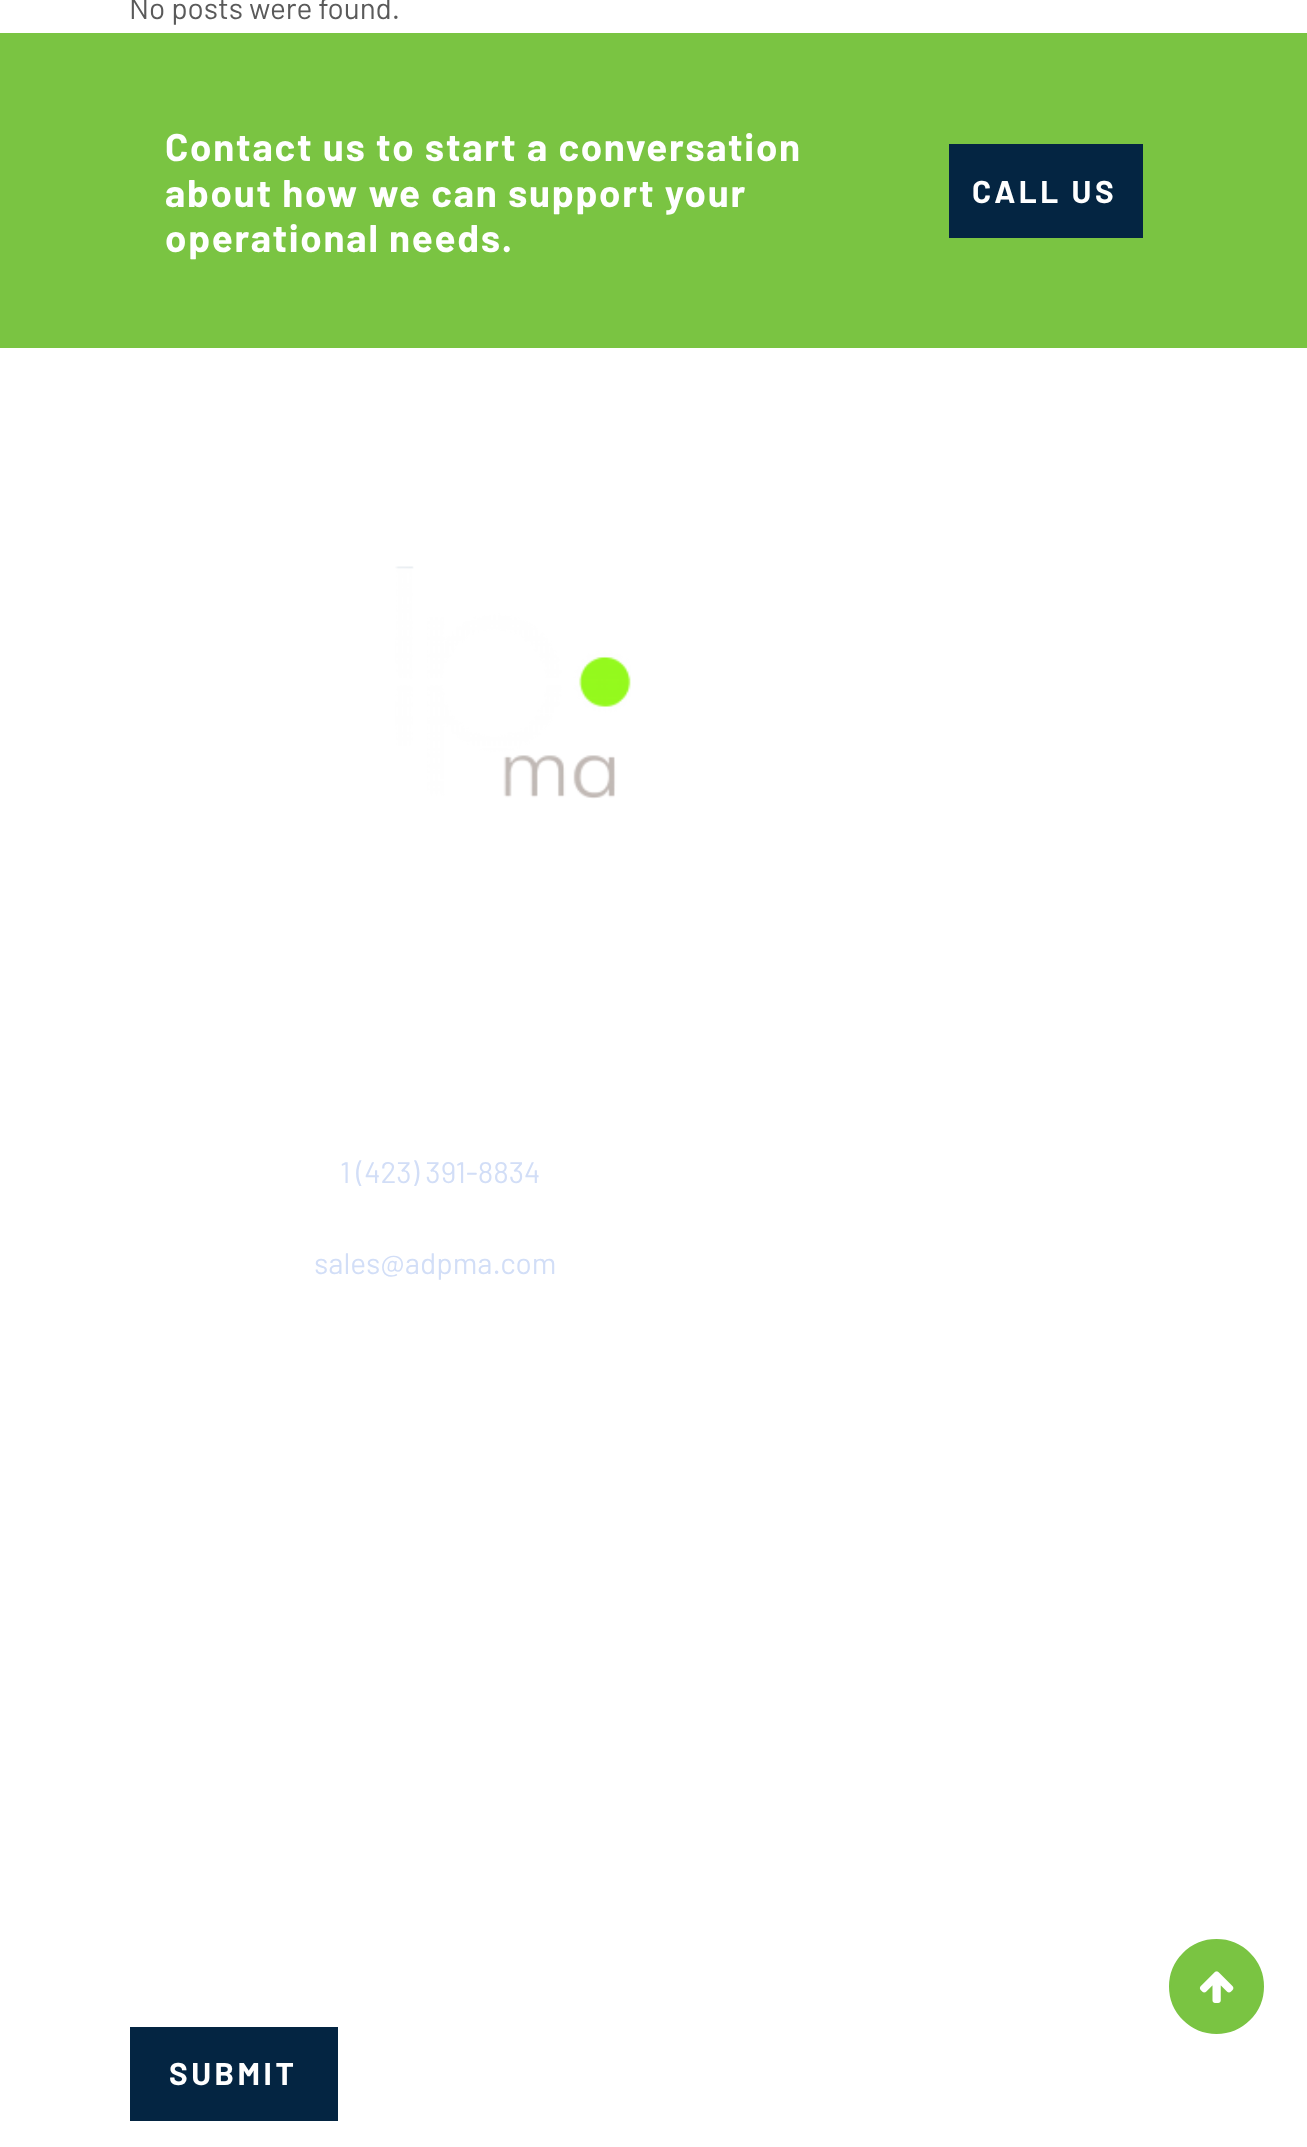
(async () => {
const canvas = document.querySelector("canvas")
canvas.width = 1307
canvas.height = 2147
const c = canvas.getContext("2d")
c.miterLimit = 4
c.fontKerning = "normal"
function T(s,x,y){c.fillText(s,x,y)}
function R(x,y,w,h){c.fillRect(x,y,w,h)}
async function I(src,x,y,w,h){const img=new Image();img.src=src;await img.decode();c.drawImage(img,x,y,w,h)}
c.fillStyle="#fff"
R(0,0,1307,2147)
c.font="29.75px Barlow"
c.fillStyle="#5a5a5a"
T("No posts were found.",129,19)
c.fillStyle="#7ac442"
R(0,33,1307,315)
c.letterSpacing="1.75px"
c.font="bold 38.5px Barlow"
c.fillStyle="#fff"
T("Contact us to start a conversation",165,161)
T("about how we can support your",165,207)
T("operational needs.",165,252)
c.fillStyle="#042542"
R(949,144,194,94)
c.letterSpacing="3.5px"
c.font="bold 31.5px Barlow"
c.fillStyle="#fff"
T("CALL US",972,203)
await I("1.png",395,566,236,233)
c.letterSpacing="0px"
c.font="29.75px Barlow"
c.fillStyle="#d2def7"
T("1 (423) 391-8834",340,1183)
T("sales@adpma.com",314,1274)
c.fillStyle="#042542"
R(130,2027,208,94)
c.letterSpacing="3.5px"
c.font="bold 31.5px Barlow"
c.fillStyle="#fff"
T("SUBMIT",169,2085)
c.fillStyle="#7ac442"
c.beginPath()
c.arc(1216.5,1986.5,46.5,0,7)
c.fill()
c.strokeStyle="#7ac442"
c.lineWidth=2
c.stroke()
await I("2.png",1199,1971,35,32)
})()
